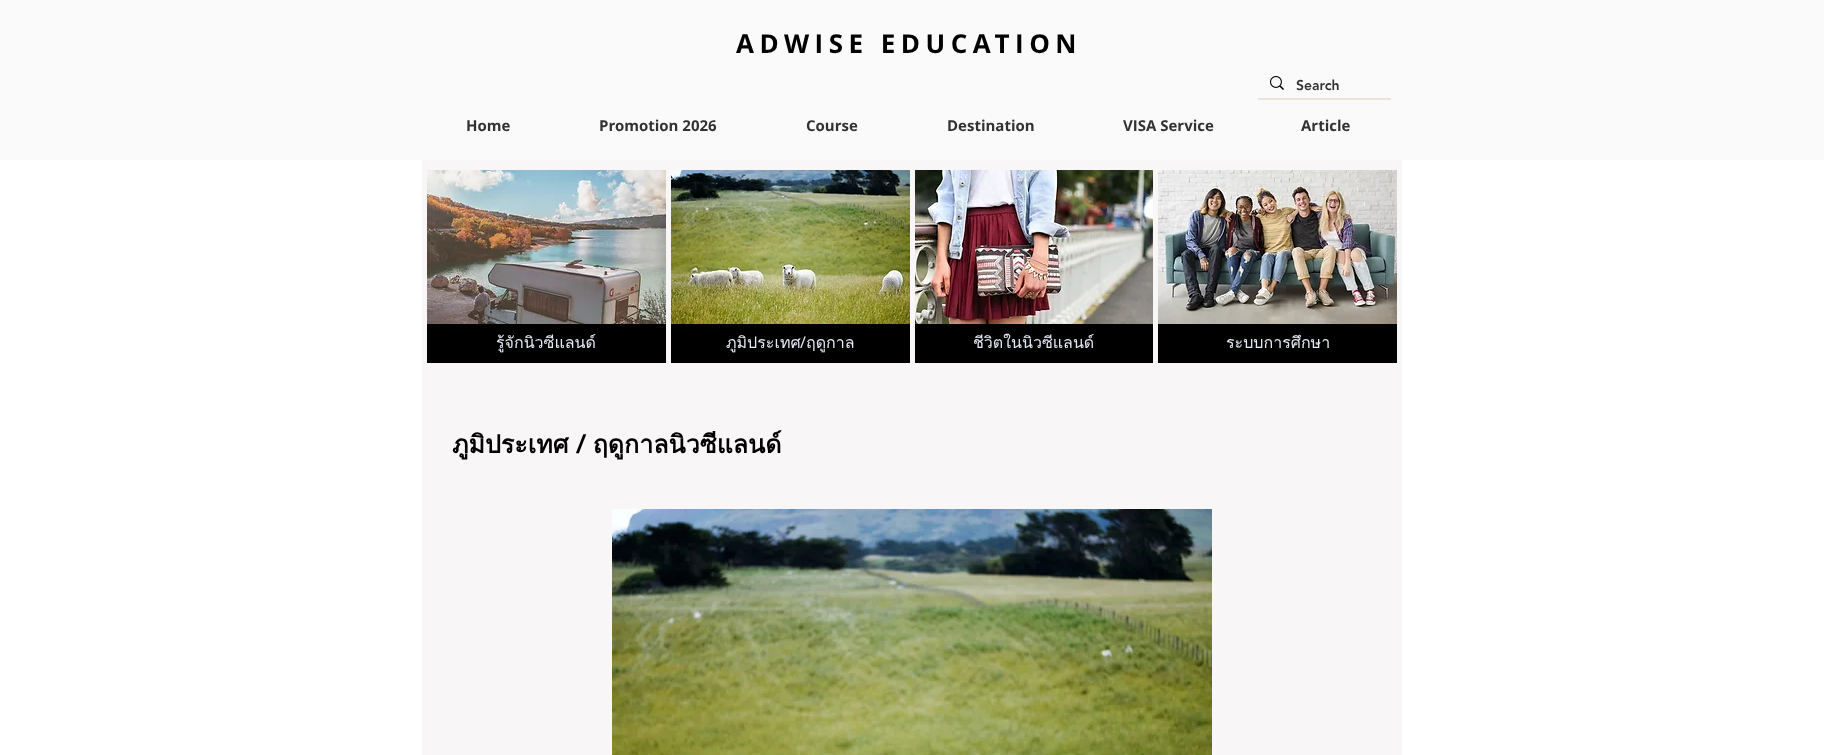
(async () => {
const canvas = document.querySelector("canvas")
canvas.width = 1824
canvas.height = 755
const c = canvas.getContext("2d")
c.miterLimit = 4
c.fontKerning = "normal"
function T(s,x,y){c.fillText(s,x,y)}
function R(x,y,w,h){c.fillRect(x,y,w,h)}
async function I(src,x,y,w,h){const img=new Image();img.src=src;await img.decode();c.drawImage(img,x,y,w,h)}
c.fillStyle="#fff"
R(0,0,1824,755)
c.fillStyle="#fafafa"
R(0,0,1824,160)
c.letterSpacing="5.5px"
c.font="bold 26px Open Sans"
c.fillStyle="#000"
T("ADWISE EDUCATION",736,53)
c.fillStyle="#ebe5d6"
R(1258,98,133,2)
await I("1.png",1270,76,14,14)
c.letterSpacing="0px"
c.font="900 14px 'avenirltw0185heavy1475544'"
c.fillStyle="#323232"
T("Search",1296,90)
c.font="bold 15px Open Sans"
T("Home",466,131)
T("Promotion 2026",599,131)
T("Course",806,131)
T("Destination",947,131)
T("VISA Service",1123,131)
T("Article",1301,131)
c.fillStyle="#f8f6f6"
R(422,160,980,595)
await I("2.png",427,170,239,154)
c.fillStyle="#000"
R(427,324,239,39)
c.font="16px Loma"
c.fillStyle="#e6eaf5"
T("รู้จักนิวซีแลนด์",496,348)
await I("3.png",671,170,239,154)
c.fillStyle="#000"
R(671,324,239,39)
c.fillStyle="#e6eaf5"
T("ภูมิประเทศ",726,348)
c.font="16px Open Sans"
T("/",800,348)
c.font="16px Loma"
T("ฤดูกาล",806,348)
await I("4.png",915,170,238,154)
c.fillStyle="#000"
R(915,324,238,39)
c.fillStyle="#e6eaf5"
T("ชีวิตในนิวซีแลนด์",973,348)
await I("5.png",1158,170,239,154)
c.fillStyle="#000"
R(1158,324,239,39)
c.fillStyle="#e6eaf5"
T("ระบบการศึกษา",1226,348)
c.font="bold 25px Loma"
c.fillStyle="#000"
T("ภูมิประเทศ / ฤดูกาลนิวซีแลนด์",452,453)
await I("6.png",612,509,600,246)
})()
